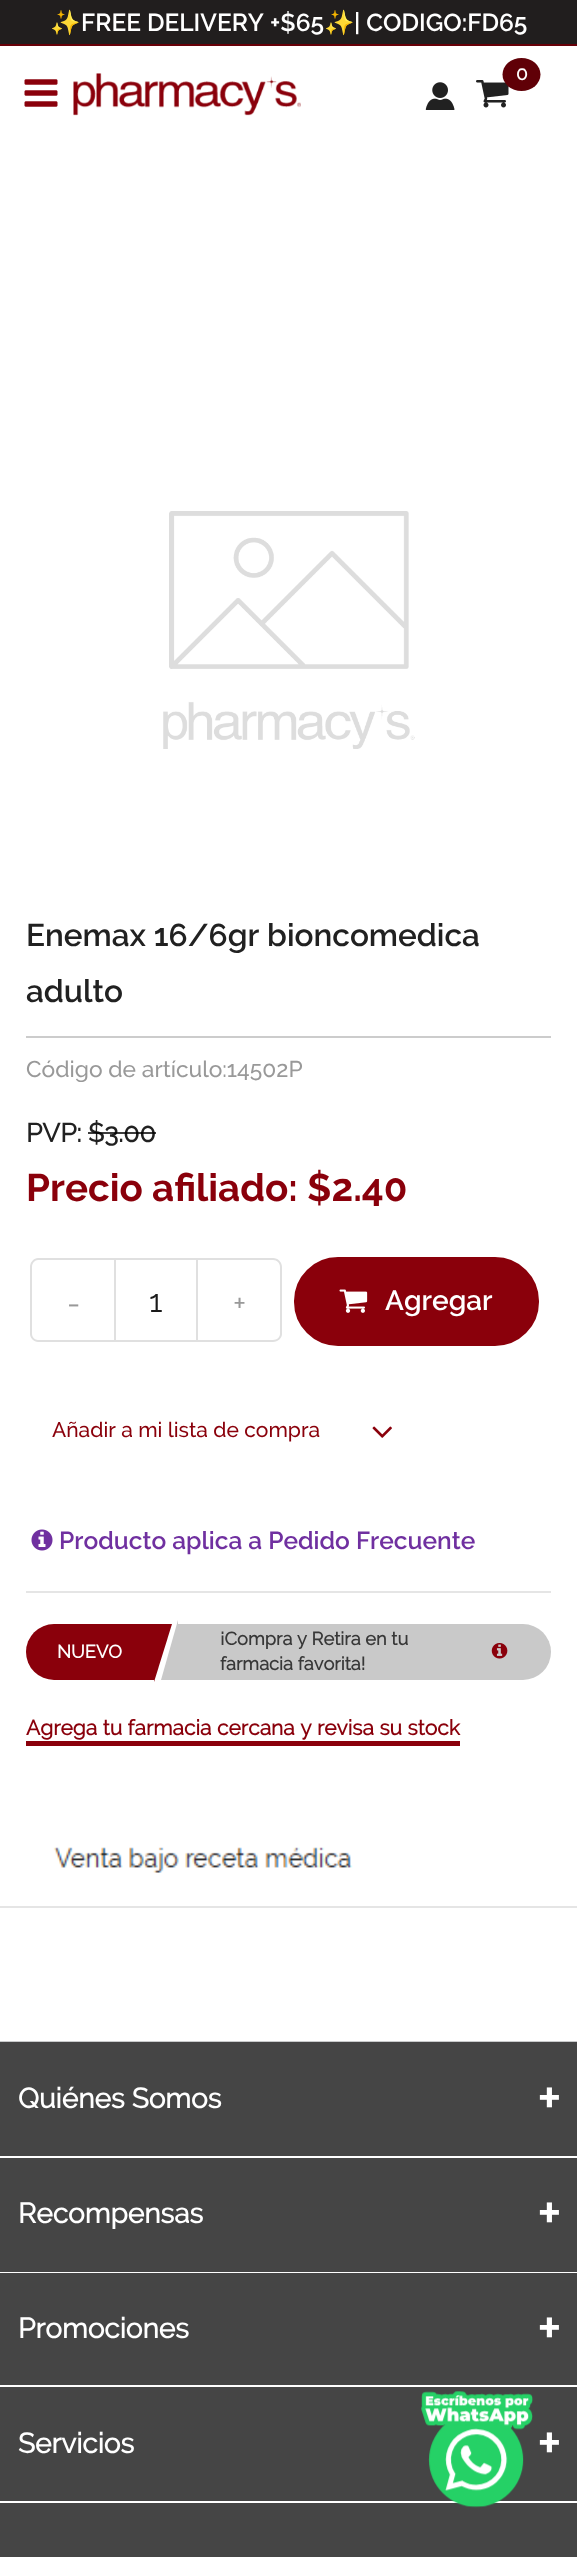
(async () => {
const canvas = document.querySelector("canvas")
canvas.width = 577
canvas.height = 2557
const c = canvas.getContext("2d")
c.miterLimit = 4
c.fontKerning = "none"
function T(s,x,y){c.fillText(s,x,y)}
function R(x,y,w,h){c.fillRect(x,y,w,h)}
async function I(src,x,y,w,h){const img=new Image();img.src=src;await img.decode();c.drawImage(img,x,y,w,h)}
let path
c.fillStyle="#fff"
R(0,0,577,2557)
c.fillStyle="#211e1e"
R(0,0,577,44)
c.font="24.5px Noto Color Emoji"
c.fillStyle="#fff"
T("✨",50,31)
c.font="600 24.5px Raleway"
T("FREE DELIVERY +$65",81,31)
c.font="24.5px Noto Color Emoji"
T("✨",324,31)
c.font="600 24.5px Raleway"
T("| CODIGO:FD65",354,31)
c.fillStyle="#670008"
R(0,44,577,2)
await I("1.png",24,79,34,28)
await I("2.png",73,73,228,43)
await I("3.png",476,80,33,28)
c.fillStyle="#600007"
c.beginPath()
c.ellipse(521.5,74.5,19,16.5,0,0,7)
c.fill()
c.font="bold 19px Raleway"
c.fillStyle="#fff"
T("0",516,80)
await I("4.png",425,82,30,28)
await I("5.png",163,511,252,238)
c.fillStyle="#ccc"
R(26,1036,525,2)
c.font="600 31.5px Raleway"
c.fillStyle="#212121"
T("Enemax 16/6gr bioncomedica",26,946)
T("adulto",26,1002)
c.font="500 22.75px Raleway"
c.fillStyle="#999"
T("Código de artículo:14502P",26,1077)
c.font="bold 26.25px Raleway"
c.fillStyle="#212121"
T("PVP: $3.00",26,1142)
c.fillStyle="#000000c2"
R(88,1132,68,2)
c.font="bold 38.5px 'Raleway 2'"
c.fillStyle="#8a000b"
T("Precio afiliado: $2.40",26,1201)
c.fillStyle="#e0e0e0"
path = new Path2D("M38 1258h76v84h-76c-4 0-8-4-8-8v-67c0-5 4-9 8-9zm0 2h76v80h-76c-3 0-6-3-6-6v-67c0-4 3-7 6-7z")
c.fill(path,"evenodd")
c.font="31.5px Raleway"
c.fillStyle="#999"
T("-",67,1314)
c.strokeStyle="#e0e0e0"
c.lineWidth=2
c.strokeRect(115,1259,82,82)
c.fillStyle="#1a1a1a"
T("1",149,1312)
c.fillStyle="#e0e0e0"
path = new Path2D("M198 1258h75c5 0 9 4 9 9v67c0 4-4 8-9 8h-75zm0 2h75c4 0 7 3 7 7v67c0 3-3 6-7 6h-75z")
c.fill(path,"evenodd")
c.fillStyle="#999"
T("+",233,1314)
c.fillStyle="#8a000b"
c.beginPath()
c.roundRect(295,1258,243,87,43)
c.fill()
c.strokeStyle="#8a000b"
c.stroke()
await I("6.png",339,1289,29,24)
c.font="600 28px Raleway"
c.fillStyle="#fff"
T("Agregar",385,1310)
c.font="500 21px Raleway"
c.fillStyle="#8a000b"
T("Añadir a mi lista de compra",52,1437)
await I("7.png",372,1426,20,12)
c.fillStyle="#e5e5e5"
R(26,1591,525,2)
await I("8.png",31,1529,22,22)
c.font="600 24.5px Raleway"
c.fillStyle="#7030a0"
T("Producto aplica a Pedido Frecuente",59,1549)
c.fillStyle="#8a000b"
c.beginPath()
c.roundRect(26,1624,128,56,[28,0,0,28])
c.fill()
c.font="bold 18.25px Raleway"
c.fillStyle="#fff"
T("NUEVO",57,1658)
c.fillStyle="#8a000b"
path = new Path2D("M154 1624h18l-18 58z")
c.fill(path)
c.fillStyle="#c9c9c9"
c.beginPath()
c.roundRect(177,1624,374,56,[0,28,28,0])
c.fill()
path = new Path2D("M178 1680h-17l17-60z")
c.fill(path)
c.fillStyle="#383838"
T("¡Compra y Retira en tu",220,1645)
await I("9.png",491,1643,17,16)
T("farmacia favorita!",220,1670)
c.font="bold 21px Raleway"
c.fillStyle="#8a000b"
T("Agrega tu farmacia cercana y revisa su stock",26,1735)
R(26,1741,434,5)
await I("10.png",53,1847,300,26)
c.fillStyle="#e5e5e5"
R(0,1906,577,2)
c.fillStyle="#c9cacb"
R(0,2041,577,1)
c.fillStyle="#454545"
R(0,2042,577,114)
c.font="bold 28px Raleway"
c.fillStyle="#fff"
T("Quiénes Somos",18,2108)
c.font="bold 56px Raleway"
T("+",537,2118)
c.fillStyle="#454545"
R(0,2158,577,114)
c.font="bold 28px Raleway"
c.fillStyle="#fff"
T("Recompensas",18,2223)
c.font="bold 56px Raleway"
T("+",537,2233)
c.fillStyle="#454545"
R(0,2273,577,112)
c.font="bold 28px Raleway"
c.fillStyle="#fff"
T("Promociones",18,2338)
c.font="bold 56px Raleway"
T("+",537,2348)
c.fillStyle="#454545"
R(0,2387,577,114)
c.font="bold 28px Raleway"
c.fillStyle="#fff"
T("Servicios",18,2453)
c.font="bold 56px Raleway"
T("+",537,2463)
c.fillStyle="#454545"
R(0,2503,577,54)
await I("11.png",421,2391,113,117)
})()
